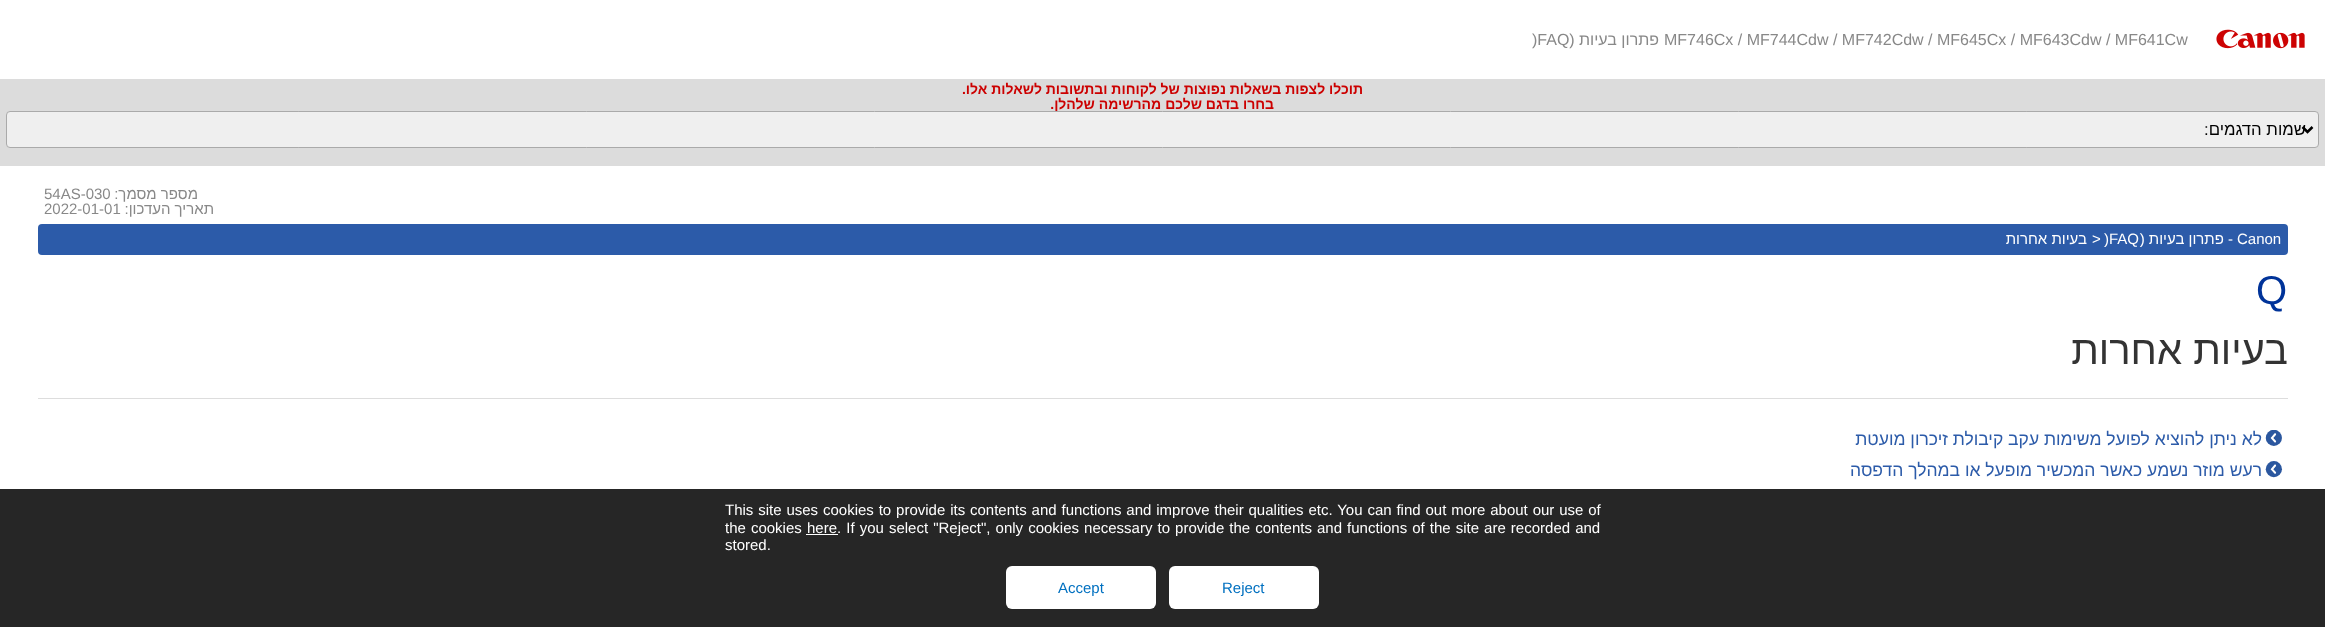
(async () => {
const canvas = document.querySelector("canvas")
canvas.width = 2325
canvas.height = 627
const c = canvas.getContext("2d")
c.miterLimit = 4
c.fontKerning = "normal"
function T(s,x,y){c.fillText(s,x,y)}
function R(x,y,w,h){c.fillRect(x,y,w,h)}
function Q(x,y,w,h,r){c.beginPath();c.roundRect(x,y,w,h,r);c.fill()}
async function I(src,x,y,w,h){const img=new Image();img.src=src;await img.decode();c.drawImage(img,x,y,w,h)}
let path
c.fillStyle="#fff"
R(0,0,2325,627)
c.font="16px Liberation Sans"
c.fillStyle="#888"
T(")FAQ",1532,45)
c.direction="rtl"
T("פתרון בעיות (",1659,45)
c.direction="ltr"
T("MF746Cx / MF744Cdw / MF742Cdw / MF645Cx / MF643Cdw / MF641Cw",1664,45)
await I("1.png",2216,29,89,20)
c.fillStyle="#dcdcdc"
R(0,79,2325,87)
c.direction="rtl"
c.font="bold 14px Liberation Sans"
c.fillStyle="#c00"
T("תוכלו לצפות בשאלות נפוצות של לקוחות ובתשובות לשאלות אלו.",1363,94)
T("בחרו בדגם שלכם מהרשימה שלהלן.",1274,109)
c.fillStyle="#efefef"
c.beginPath()
c.roundRect(6.5,111.5,2312,36,3.5)
c.fill()
c.strokeStyle="#aaa"
c.stroke()
path = new Path2D("M2302.5 127l5 5l5-5")
c.strokeStyle="#000"
c.lineWidth=2.5
c.stroke(path)
c.font="16.75px Liberation Sans"
c.fillStyle="#000"
T("שמות הדגמים:",2306,135)
c.direction="ltr"
c.font="15px Liberation Sans"
c.fillStyle="#888"
T("54AS-030",44,199)
c.direction="rtl"
T("מספר מסמך:",198,199)
c.direction="ltr"
T("2022-01-01",44,214)
c.direction="rtl"
T("תאריך העדכון:",214,214)
c.fillStyle="#2c5ba9"
Q(38,224,2250,31,4)
c.fillStyle="#fff"
T("בעיות אחרות",2087,244)
c.direction="ltr"
T(">",2092,244)
T(")FAQ",2104,244)
c.direction="rtl"
T("- פתרון בעיות (",2233,244)
c.direction="ltr"
T("Canon",2237,244)
c.fillStyle="#ddd"
R(38,398,2250,1)
c.font="40px Liberation Sans"
c.fillStyle="#039"
T("Q",2256,304)
c.direction="rtl"
c.fillStyle="#333"
T("בעיות אחרות",2288,364)
c.font="17.5px Liberation Sans"
c.fillStyle="#2c5ba9"
T("לא ניתן להוציא לפועל משימות עקב קיבולת זיכרון מועטת",2262,445)
await I("2.png",2265,430,17,16)
T("רעש מוזר נשמע כאשר המכשיר מופעל או במהלך הדפסה",2262,476)
await I("3.png",2265,461,18,17)
c.fillStyle="#262626"
R(0,489,2325,138)
c.wordSpacing="0.7px"
c.direction="ltr"
c.font="15px Liberation Sans"
c.fillStyle="#fff"
T("This site uses cookies to provide its contents and functions and improve their qualities etc. You can find out more about our use of",725,515)
c.wordSpacing="0.9px"
T("the cookies",725,533)
c.wordSpacing="0px"
T("here",807,533)
R(806,534,32,1)
c.wordSpacing="0.9px"
T(". If you select \"Reject\", only cookies necessary to provide the contents and functions of the site are recorded and",837,533)
c.wordSpacing="0px"
T("stored.",725,550)
Q(1006,566,150,43,6)
c.fillStyle="#0070c0"
T("Accept",1058,593)
c.fillStyle="#fff"
Q(1169,566,150,43,6)
c.fillStyle="#0070c0"
T("Reject",1222,593)
})()
